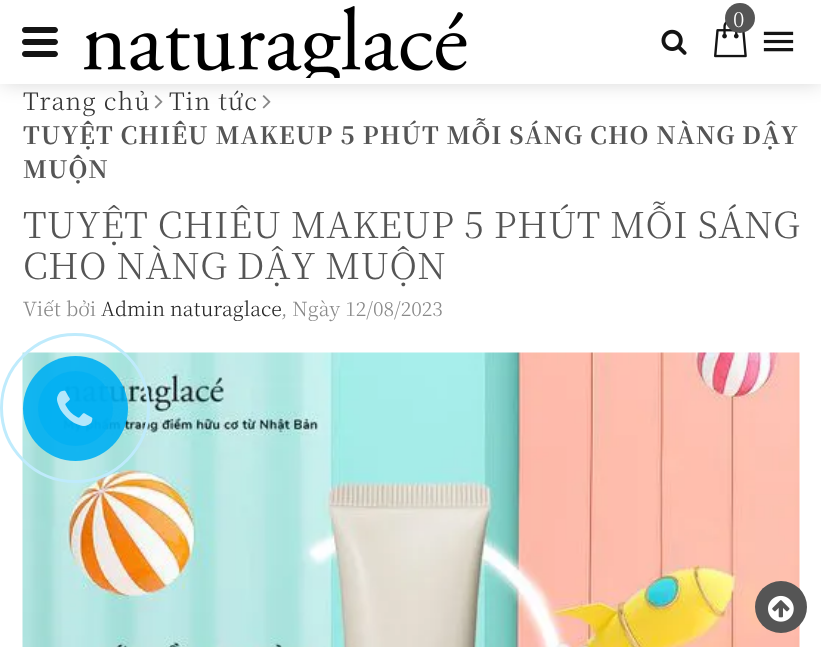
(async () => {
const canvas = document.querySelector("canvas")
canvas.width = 821
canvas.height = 647
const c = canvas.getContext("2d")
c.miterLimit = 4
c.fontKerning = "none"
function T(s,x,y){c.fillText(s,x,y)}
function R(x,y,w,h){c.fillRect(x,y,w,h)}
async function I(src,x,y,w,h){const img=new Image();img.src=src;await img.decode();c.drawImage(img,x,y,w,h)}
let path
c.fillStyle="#fff"
R(0,0,821,647)
await I("5.png",154,95,9,14)
await I("5.png",262,95,9,14)
c.fillStyle="#0000002b"
c.filter="blur(10px)"
c.beginPath()
c.rect(2,2,819,81)
c.fill()
c.filter="none"
c.fillStyle="#fff"
R(0,0,821,84)
c.fillStyle="#141414"
path = new Path2D("M55 45h-30c-2 0-3-1.5-3-3c0-1.5 1-3 3-3h30c1.5 0 3 1.5 3 3c0 1.5-1.5 3-3 3zm0 12h-30c-2 0-3-1.5-3-3c0-1.5 1-3 3-3h30c1.5 0 3 1.5 3 3c0 1.5-1.5 3-3 3zm0-24h-30c-2 0-3-1.5-3-3c0-1.5 1-3 3-3h30c1.5 0 3 1.5 3 3c0 1.5-1.5 3-3 3z")
c.fill(path)
await I("1.png",84,6,383,72)
await I("2.png",714,21,33,37)
c.fillStyle="#555"
c.beginPath()
c.arc(740,18,15,0,7)
c.fill()
c.letterSpacing="1px"
c.font="300 21px Noto Serif TC"
c.fillStyle="#fff"
T("0",733,27)
await I("3.png",661,29,26,26)
await I("4.png",763,31,31,21)
c.letterSpacing="0.95px"
c.font="300 24px Noto Serif TC"
c.fillStyle="#333"
T("Trang chủ",23,110)
T("Tin tức",169,110)
c.font="bold 24px Noto Serif TC"
c.fillStyle="#555"
T("TUYỆT CHIÊU MAKEUP 5 PHÚT MỖI SÁNG CHO NÀNG",23,144)
T("DẬY",742,144)
T("MUỘN",23,178)
c.letterSpacing="0.35px"
c.font="300 36px Noto Serif TC"
T("TUYỆT CHIÊU MAKEUP 5 PHÚT MỖI SÁNG",23,238)
T("CHO NÀNG DẬY MUỘN",23,279)
c.letterSpacing="0px"
c.font="300 19.5px Noto Serif TC"
c.fillStyle="#898989"
T("Viết bởi",23,316)
c.fillStyle="#252525"
T("Admin naturaglace",101,316)
c.fillStyle="#898989"
T(", Ngày 12/08/2023",281,316)
await I("6.png",22,352,778,295)
c.fillStyle="#555"
c.beginPath()
c.arc(781,607,26,0,7)
c.fill()
await I("7.png",768,595,26,27)
c.beginPath()
c.arc(75,408,73.5,0,7)
c.strokeStyle="#bfebfc"
c.lineWidth=3
c.stroke()
c.fillStyle="#00aff2e6"
c.beginPath()
c.arc(75.5,408.5,52.5,0,7)
c.fill()
c.fillStyle="#00aff2b3"
c.beginPath()
c.arc(75.5,408.5,37.5,0,7)
c.fill()
await I("8.png",57,390,36,36)
})()
